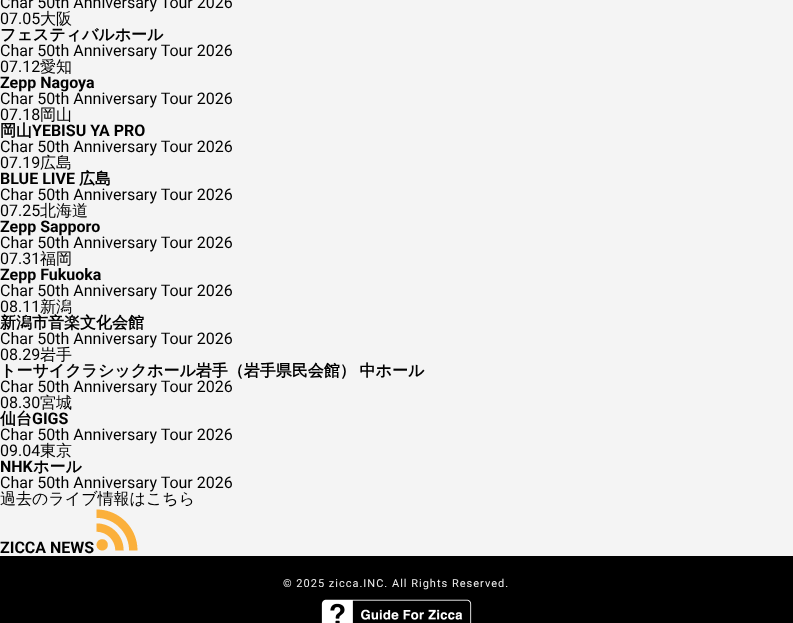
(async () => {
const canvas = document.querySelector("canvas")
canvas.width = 793
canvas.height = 623
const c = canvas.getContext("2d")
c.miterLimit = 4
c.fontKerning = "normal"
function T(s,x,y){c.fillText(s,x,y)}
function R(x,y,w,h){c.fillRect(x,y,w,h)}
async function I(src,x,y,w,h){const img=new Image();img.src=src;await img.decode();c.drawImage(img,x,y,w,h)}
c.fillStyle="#f4f4f4"
R(0,0,793,623)
c.font="16px Roboto"
c.fillStyle="#000"
T("Char 50th Anniversary Tour 2026",0,8)
T("07.05",0,24)
c.font="500 16px WenQuanYi Zen Hei"
T("大阪",40,24)
c.font="bold 16px WenQuanYi Zen Hei"
T("フェスティバルホール",0,40)
c.font="16px Roboto"
T("Char 50th Anniversary Tour 2026",0,56)
T("07.12",0,72)
c.font="500 16px WenQuanYi Zen Hei"
T("愛知",40,72)
c.font="bold 16px Roboto"
T("Zepp Nagoya",0,88)
c.font="16px Roboto"
T("Char 50th Anniversary Tour 2026",0,104)
T("07.18",0,120)
c.font="500 16px WenQuanYi Zen Hei"
T("岡山",40,120)
c.font="bold 16px WenQuanYi Zen Hei"
T("岡山",0,136)
c.font="bold 16px Roboto"
T("YEBISU YA PRO",32,136)
c.font="16px Roboto"
T("Char 50th Anniversary Tour 2026",0,152)
T("07.19",0,168)
c.font="500 16px WenQuanYi Zen Hei"
T("広島",40,168)
c.font="bold 16px Roboto"
T("BLUE LIVE",0,184)
c.font="bold 16px WenQuanYi Zen Hei"
T("広島",79,184)
c.font="16px Roboto"
T("Char 50th Anniversary Tour 2026",0,200)
T("07.25",0,216)
c.font="500 16px WenQuanYi Zen Hei"
T("北海道",40,216)
c.font="bold 16px Roboto"
T("Zepp Sapporo",0,232)
c.font="16px Roboto"
T("Char 50th Anniversary Tour 2026",0,248)
T("07.31",0,264)
c.font="500 16px WenQuanYi Zen Hei"
T("福岡",40,264)
c.font="bold 16px Roboto"
T("Zepp Fukuoka",0,280)
c.font="16px Roboto"
T("Char 50th Anniversary Tour 2026",0,296)
T("08.11",0,312)
c.font="500 16px WenQuanYi Zen Hei"
T("新潟",40,312)
c.font="bold 16px WenQuanYi Zen Hei"
T("新潟市音楽文化会館",0,328)
c.font="16px Roboto"
T("Char 50th Anniversary Tour 2026",0,344)
T("08.29",0,360)
c.font="500 16px WenQuanYi Zen Hei"
T("岩手",40,360)
c.wordSpacing="-1px"
c.font="bold 16px WenQuanYi Zen Hei"
T("トーサイクラシックホール岩手（岩手県民会館） 中ホール",0,376)
c.wordSpacing="0px"
c.font="16px Roboto"
T("Char 50th Anniversary Tour 2026",0,392)
T("08.30",0,408)
c.font="500 16px WenQuanYi Zen Hei"
T("宮城",40,408)
c.font="bold 16px WenQuanYi Zen Hei"
T("仙台",0,424)
c.font="bold 16px Roboto"
T("GIGS",32,424)
c.font="16px Roboto"
T("Char 50th Anniversary Tour 2026",0,440)
T("09.04",0,456)
c.font="500 16px WenQuanYi Zen Hei"
T("東京",40,456)
c.font="bold 16px Roboto"
T("NHK",0,472)
c.font="bold 16px WenQuanYi Zen Hei"
T("ホール",33,472)
c.font="16px Roboto"
T("Char 50th Anniversary Tour 2026",0,488)
c.font="500 16px WenQuanYi Zen Hei"
T("過去のライブ情報はこちら",0,504)
c.font="bold 16px Roboto"
T("ZICCA NEWS",0,553)
await I("1.png",96,509,42,42)
R(0,556,793,67)
c.letterSpacing="1px"
c.font="11px Roboto"
c.fillStyle="#eee"
T("© 2025 zicca.INC. All Rights Reserved.",283,587)
await I("2.png",321,599,151,24)
})()
